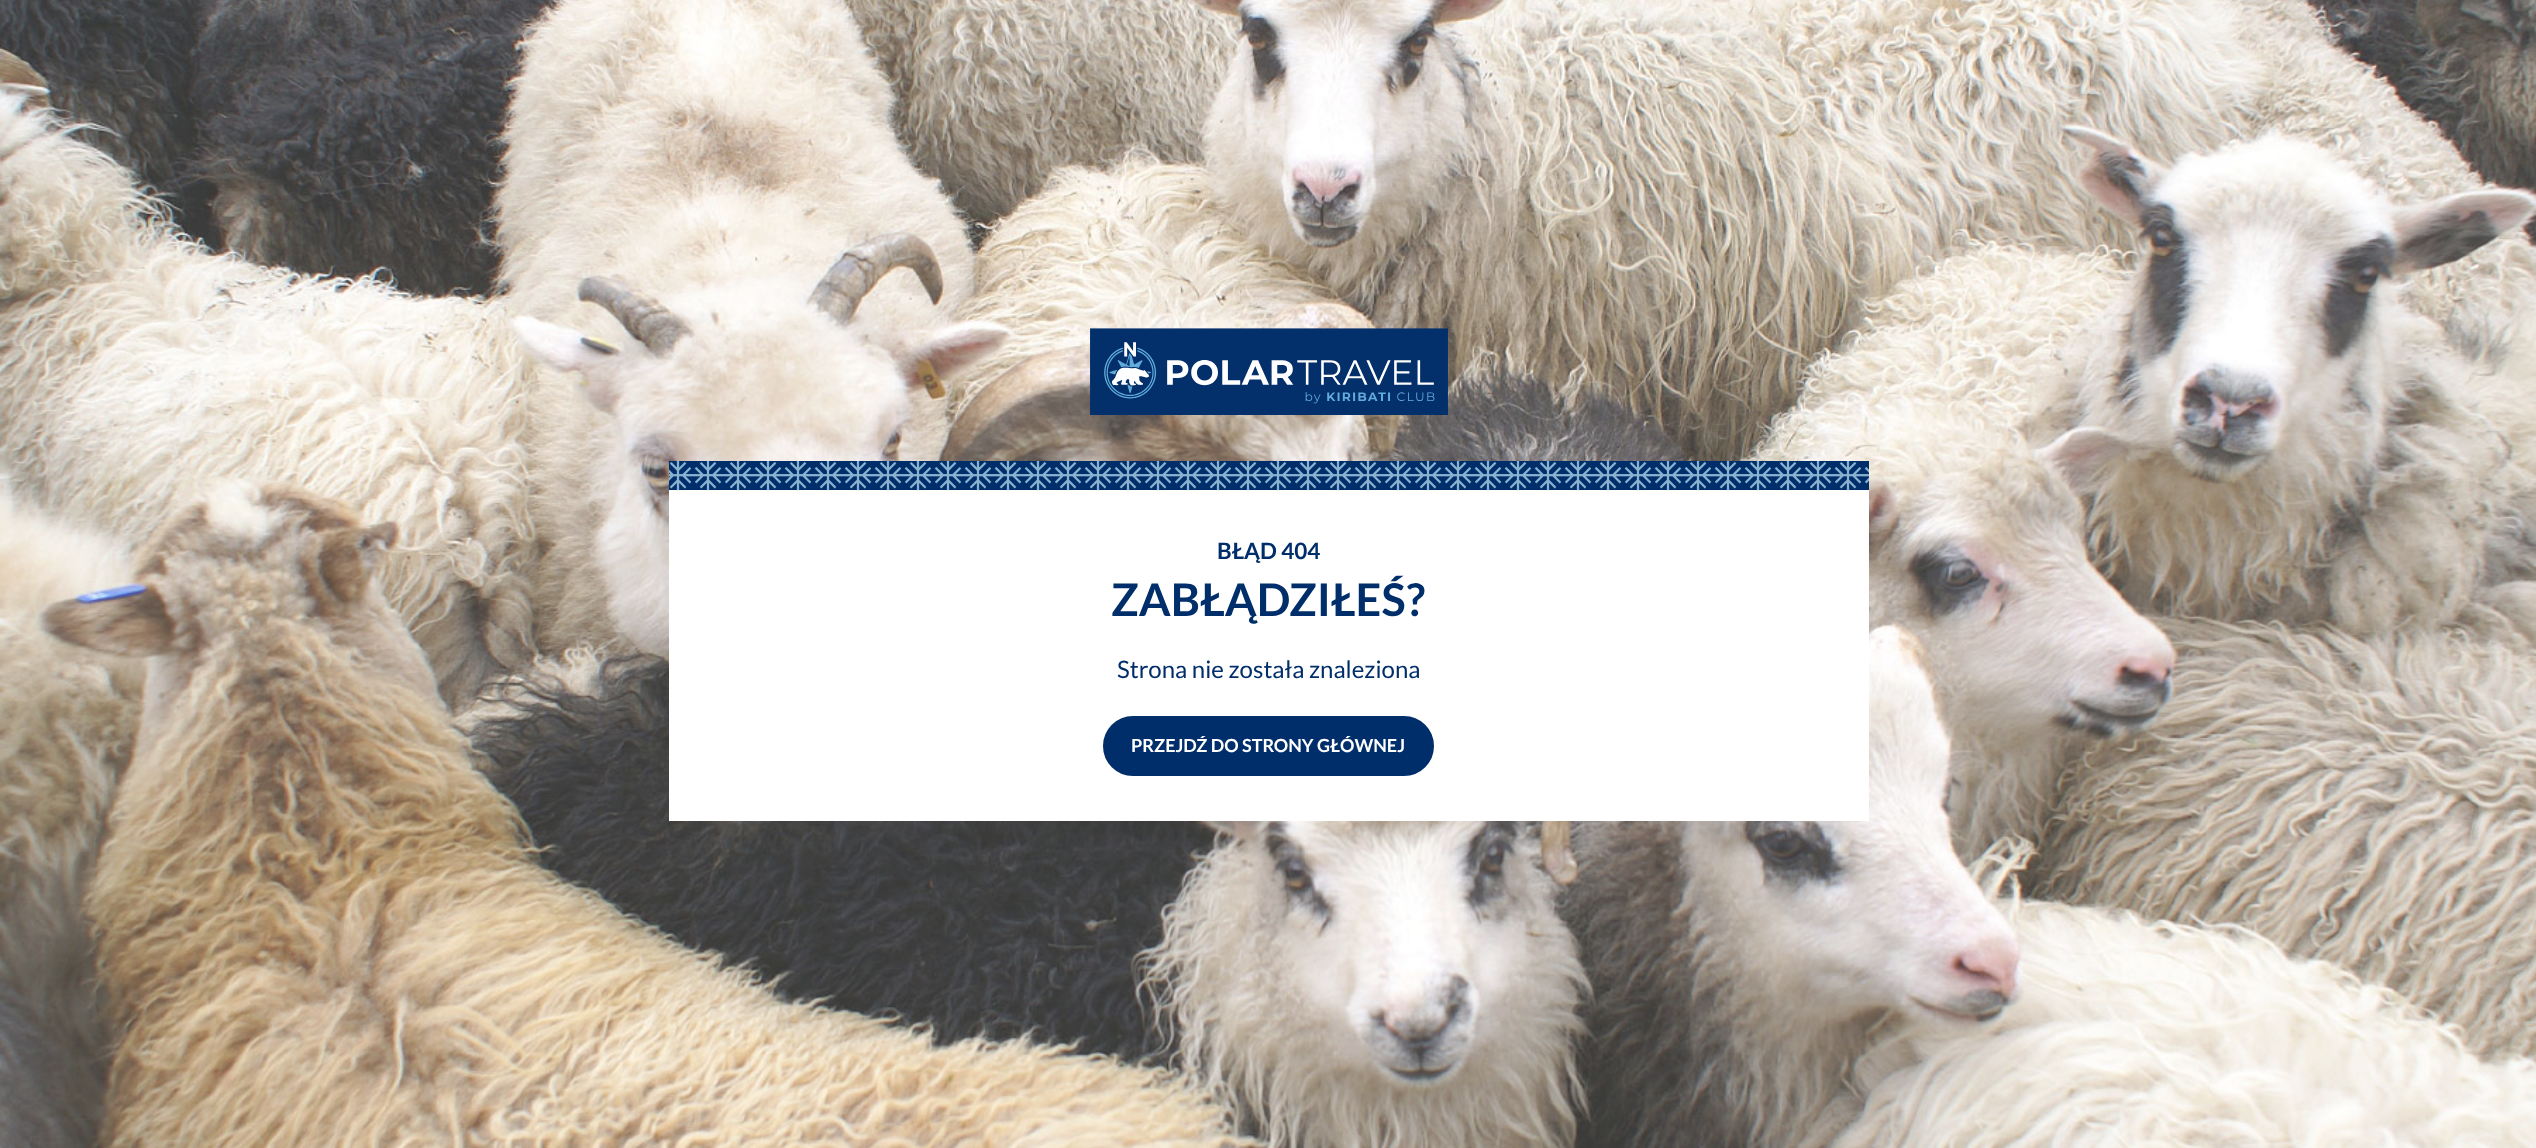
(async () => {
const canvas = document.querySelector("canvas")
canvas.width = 2536
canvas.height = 1148
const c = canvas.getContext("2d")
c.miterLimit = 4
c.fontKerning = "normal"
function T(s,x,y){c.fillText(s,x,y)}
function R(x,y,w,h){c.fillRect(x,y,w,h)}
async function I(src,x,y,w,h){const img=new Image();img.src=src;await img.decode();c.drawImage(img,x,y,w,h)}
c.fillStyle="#fff"
R(0,0,2536,1148)
await I("1.png",0,0,2536,1148)
await I("2.png",1090,328,358,87)
R(669,490,1200,331)
await I("3.png",669,461,1200,30)
c.font="bold 22.5px Lato"
c.fillStyle="#002e6a"
T("BŁĄD 404",1217,559)
c.font="bold 45px Lato"
T("ZABŁĄDZIŁEŚ?",1111,616)
c.font="24px Lato"
T("Strona nie została znaleziona",1117,678)
c.beginPath()
c.roundRect(1104,717,329,58,29)
c.fill()
c.strokeStyle="#002e6a"
c.lineWidth=2
c.stroke()
c.font="bold 18px Lato"
c.fillStyle="#fff"
T("PRZEJDŹ DO STRONY GŁÓWNEJ",1131,752)
})()
